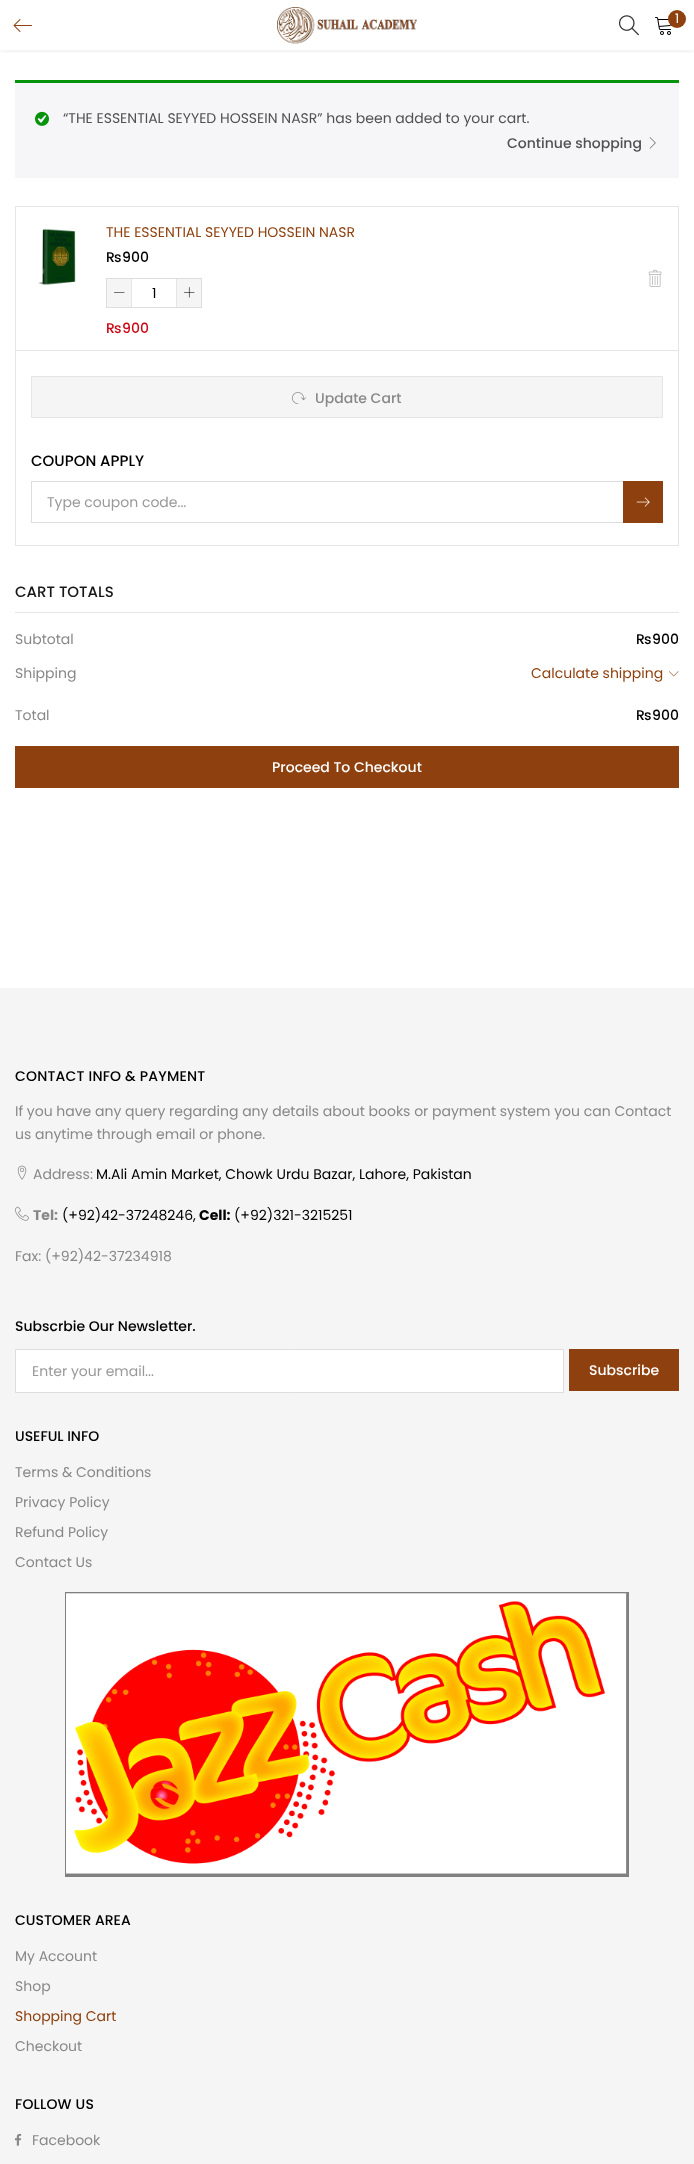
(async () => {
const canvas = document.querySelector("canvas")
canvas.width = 694
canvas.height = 2164
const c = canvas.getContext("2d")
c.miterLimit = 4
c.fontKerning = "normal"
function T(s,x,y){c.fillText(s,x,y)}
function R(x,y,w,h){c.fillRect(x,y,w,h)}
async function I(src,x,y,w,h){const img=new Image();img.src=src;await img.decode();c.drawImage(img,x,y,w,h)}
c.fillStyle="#fff"
R(0,0,694,2164)
c.save()
c.beginPath()
c.rect(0,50,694,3)
c.clip()
c.fillStyle="#0000001a"
c.filter="blur(4px)"
c.beginPath()
c.rect(0,0,694,50)
c.fill()
c.filter="none"
c.restore()
await I("1.png",277,7,140,37)
await I("2.png",619,15,20,21)
await I("3.png",655,17,16,18)
c.fillStyle="#8e410e"
c.beginPath()
c.arc(677,19,9,0,7)
c.fill()
c.font="13px Poppins"
c.fillStyle="#fff"
T("1",675,23)
await I("4.png",13,19,19,13)
c.fillStyle="#f6f5f8"
R(15,83,664,95)
c.fillStyle="#07930b"
R(15,80,664,3)
await I("5.png",35,111,14,15)
c.font="14px Poppins"
c.fillStyle="#515151"
T("“THE ESSENTIAL SEYYED HOSSEIN NASR” has been added to your cart.",63,123)
c.font="500 14px Poppins"
T("Continue shopping",507,148)
await I("6.png",649,137,7,12)
c.strokeStyle="#e5e5e5"
c.strokeRect(15.5,206.5,663,144)
await I("7.png",38,228,38,57)
c.font="14px Poppins"
c.fillStyle="#8e410e"
T("THE ESSENTIAL SEYYED HOSSEIN NASR",106,237)
c.font="500 14px Poppins"
c.fillStyle="#000"
T("₨900",106,262)
await I("8.png",648,269,14,18)
c.strokeStyle="#ddd"
c.strokeRect(106.5,278.5,95,29)
c.fillStyle="#f5f5f5"
R(107,279,24,28)
c.fillStyle="#e5e5e5"
R(131,279,1,28)
await I("9.png",114,292,11,1)
c.font="14px Poppins"
c.fillStyle="#000"
T("1",152,298)
c.fillStyle="#f5f5f5"
R(177,279,24,28)
c.fillStyle="#e5e5e5"
R(176,279,1,28)
await I("10.png",184,287,11,11)
c.font="500 14px Poppins"
c.fillStyle="#ca0815"
T("₨900",106,333)
c.fillStyle="#e5e5e5"
R(678,351,1,195)
R(15,351,1,67)
c.fillStyle="#f5f5f5"
c.beginPath()
c.rect(31.5,376.5,631,41)
c.fill()
c.strokeStyle="#e5e5e5"
c.stroke()
await I("11.png",292,392,14,12)
c.fillStyle="#888"
T("Update Cart",315,403)
c.fillStyle="#e5e5e5"
R(15,545,664,1)
R(15,418,1,128)
c.font="500 15px Poppins"
c.fillStyle="#000"
T("COUPON APPLY",31,466)
c.strokeStyle="#ddd"
c.strokeRect(31.5,481.5,631,41)
c.font="14px Poppins"
c.fillStyle="#999"
T("Type coupon code...",47,507)
c.fillStyle="#8e410e"
R(623,481,40,42)
await I("12.png",636,497,14,10)
c.fillStyle="#e5e5e5"
R(15,612,664,1)
c.font="500 15px Poppins"
c.fillStyle="#17181a"
T("CART TOTALS",15,597)
c.font="14px Poppins"
c.fillStyle="#888"
T("Subtotal",15,644)
c.font="500 14px Poppins"
c.fillStyle="#000"
T("₨900",636,644)
c.font="14px Poppins"
c.fillStyle="#888"
T("Shipping",15,678)
c.fillStyle="#8e410e"
T("Calculate shipping",531,678)
await I("13.png",669,671,10,6)
c.fillStyle="#888"
T("Total",15,720)
c.font="500 14px Poppins"
c.fillStyle="#000"
T("₨900",636,720)
c.fillStyle="#8e410e"
R(15,746,664,42)
c.fillStyle="#fff"
T("Proceed To Checkout",272,772)
c.fillStyle="#f5f5f5"
R(0,988,694,1176)
c.letterSpacing="0.2px"
c.fillStyle="#000"
T("CONTACT INFO & PAYMENT",15,1081)
c.letterSpacing="0px"
c.font="14px Poppins"
c.fillStyle="#888"
T("If you have any query regarding any details about books or payment system you can Contact",15,1116)
T("us anytime through email or phone.",15,1139)
await I("14.png",17,1165,10,15)
T("Address:",33,1179)
c.fillStyle="#000"
T("M.Ali Amin Market, Chowk Urdu Bazar, Lahore, Pakistan",96,1179)
await I("15.png",15,1206,14,15)
c.font="bold 14px Poppins"
c.fillStyle="#888"
T("Tel:",33,1220)
c.font="14px Poppins"
c.fillStyle="#000"
T("(+92)42-37248246,",62,1220)
c.font="bold 14px Poppins"
T("Cell:",199,1220)
c.font="14px Poppins"
T("(+92)321-3215251",234,1220)
c.fillStyle="#888"
T("Fax: (+92)42-37234918",15,1261)
c.font="500 14px Poppins"
c.fillStyle="#000"
T("Subscrbie Our Newsletter.",15,1331)
c.fillStyle="#fff"
c.beginPath()
c.rect(15.5,1349.5,548,43)
c.fill()
c.stroke()
c.font="14px Poppins"
c.fillStyle="#999"
T("Enter your email...",32,1376)
c.fillStyle="#8e410e"
R(569,1349,110,42)
c.font="500 14px Poppins"
c.fillStyle="#fff"
T("Subscribe",589,1375)
c.fillStyle="#000"
T("USEFUL INFO",15,1441)
c.font="14px Poppins"
c.fillStyle="#888"
T("Terms & Conditions",15,1477)
T("Privacy Policy",15,1507)
T("Refund Policy",15,1537)
T("Contact Us",15,1567)
await I("16.png",65,1592,564,285)
c.font="500 14px Poppins"
c.fillStyle="#000"
T("CUSTOMER AREA",15,1925)
c.font="14px Poppins"
c.fillStyle="#888"
T("My Account",15,1961)
T("Shop",15,1991)
c.fillStyle="#8e410e"
T("Shopping Cart",15,2021)
c.fillStyle="#888"
T("Checkout",15,2051)
c.letterSpacing="0.2px"
c.font="500 14px Poppins"
c.fillStyle="#000"
T("FOLLOW US",15,2109)
await I("17.png",15,2133,7,13)
c.letterSpacing="0px"
c.font="14px Poppins"
c.fillStyle="#888"
T("Facebook",32,2145)
})()
